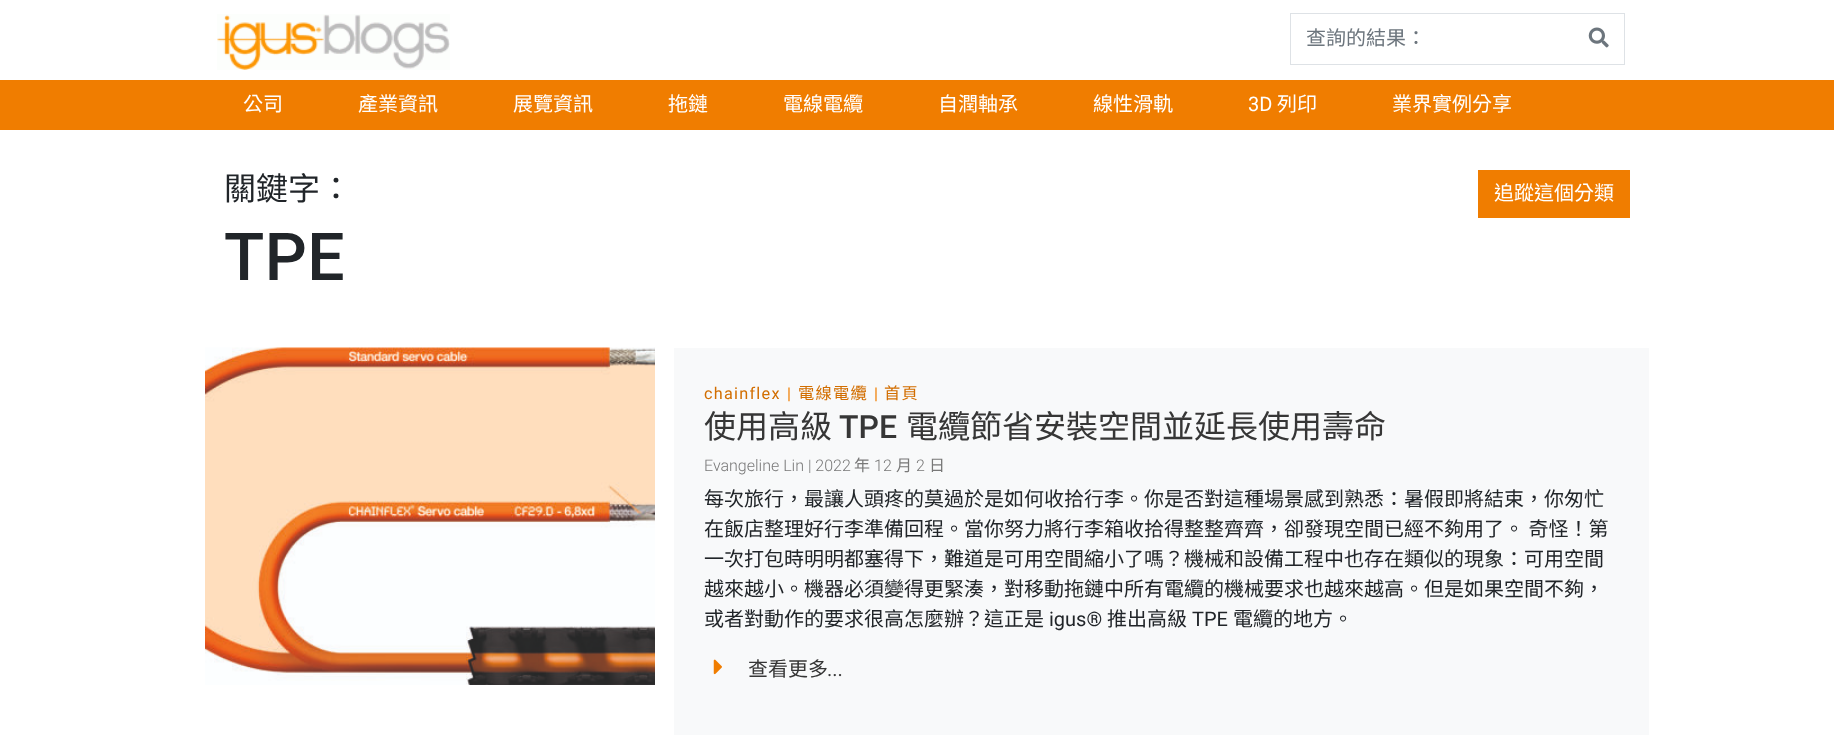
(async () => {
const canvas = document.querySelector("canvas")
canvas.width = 1834
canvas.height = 742
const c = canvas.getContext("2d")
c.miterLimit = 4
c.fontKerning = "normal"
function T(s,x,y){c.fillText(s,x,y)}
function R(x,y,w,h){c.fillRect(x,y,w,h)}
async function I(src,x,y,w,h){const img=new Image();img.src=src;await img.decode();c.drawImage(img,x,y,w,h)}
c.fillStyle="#fff"
R(0,0,1834,742)
await I("1.png",217,14,233,56)
c.fillStyle="#dee2e6"
R(1290,13,335,1)
R(1290,64,285,1)
R(1290,13,1,52)
c.font="20px Noto Sans CJK TC"
c.fillStyle="#6c757d"
T("查詢的結果：",1306,45)
c.fillStyle="#dee2e6"
R(1624,13,1,52)
R(1574,64,51,1)
await I("2.png",1588,27,21,21)
c.fillStyle="#f07d00"
R(0,80,1834,50)
c.fillStyle="#fff"
T("公司",243,111)
T("產業資訊",358,111)
T("展覽資訊",513,111)
T("拖鏈",668,111)
T("電線電纜",783,111)
T("自潤軸承",938,111)
T("線性滑軌",1093,111)
c.font="20px Roboto"
T("3D",1248,111)
c.font="20px Noto Sans CJK TC"
T("列印",1277,111)
T("業界實例分享",1392,111)
c.font="32px Noto Sans CJK TC"
c.fillStyle="#212529"
T("關鍵字：",224,200)
c.letterSpacing="0.5px"
c.font="500 66px Roboto"
T("TPE",224,280)
c.fillStyle="#f07d00"
R(1478,170,152,48)
c.letterSpacing="0px"
c.font="20px Noto Sans CJK TC"
c.fillStyle="#fff"
T("追蹤這個分類",1494,200)
await I("3.png",205,347,450,338)
c.fillStyle="#f8f9fa"
R(674,348,975,387)
c.letterSpacing="1.25px"
c.font="16.25px Roboto"
c.fillStyle="#d26e00"
T("chainflex",704,399)
c.fillStyle="#f07d00"
T("|",787,399)
c.font="16.25px Noto Sans CJK TC"
c.fillStyle="#d26e00"
T("電線電纜",798,399)
c.font="16.25px Roboto"
c.fillStyle="#f07d00"
T("|",874,399)
c.font="16.25px Noto Sans CJK TC"
c.fillStyle="#d26e00"
T("首頁",884,399)
c.letterSpacing="0px"
c.font="32px Noto Sans CJK TC"
c.fillStyle="#363636"
T("使用高級",704,438)
c.font="500 32px Roboto"
T("TPE",839,438)
c.font="32px Noto Sans CJK TC"
T("電纜節省安裝空間並延長使用壽命",906,438)
c.font="300 16px Roboto"
c.fillStyle="#787878"
T("Evangeline Lin | 2022",704,471)
c.font="16px Noto Sans CJK TC"
T("年",854,471)
c.font="300 16px Roboto"
T("12",874,471)
c.font="16px Noto Sans CJK TC"
T("月",896,471)
c.font="300 16px Roboto"
T("2",916,471)
c.font="16px Noto Sans CJK TC"
T("日",929,471)
c.font="20px Noto Sans CJK TC"
c.fillStyle="#212529"
T("每次旅行，最讓人頭疼的莫過於是如何收拾行李。你是否對這種場景感到熟悉：暑假即將結束，你匆忙",704,506)
T("在飯店整理好行李準備回程。當你努力將行李箱收拾得整整齊齊，卻發現空間已經不夠用了。 奇怪！第",704,536)
T("一次打包時明明都塞得下，難道是可用空間縮小了嗎？機械和設備工程中也存在類似的現象：可用空間",704,566)
T("越來越小。機器必須變得更緊湊，對移動拖鏈中所有電纜的機械要求也越來越高。但是如果空間不夠，",704,596)
T("或者對動作的要求很高怎麼辦？這正是",704,626)
c.font="20px Roboto"
T("igus®",1049,626)
c.font="20px Noto Sans CJK TC"
T("推出高級",1107,626)
c.font="20px Roboto"
T("TPE",1192,626)
c.font="20px Noto Sans CJK TC"
T("電纜的地方。",1233,626)
await I("4.png",713,659,9,16)
c.fillStyle="#363636"
T("查看更多",748,676)
c.font="20px Roboto"
T("...",827,676)
})()
